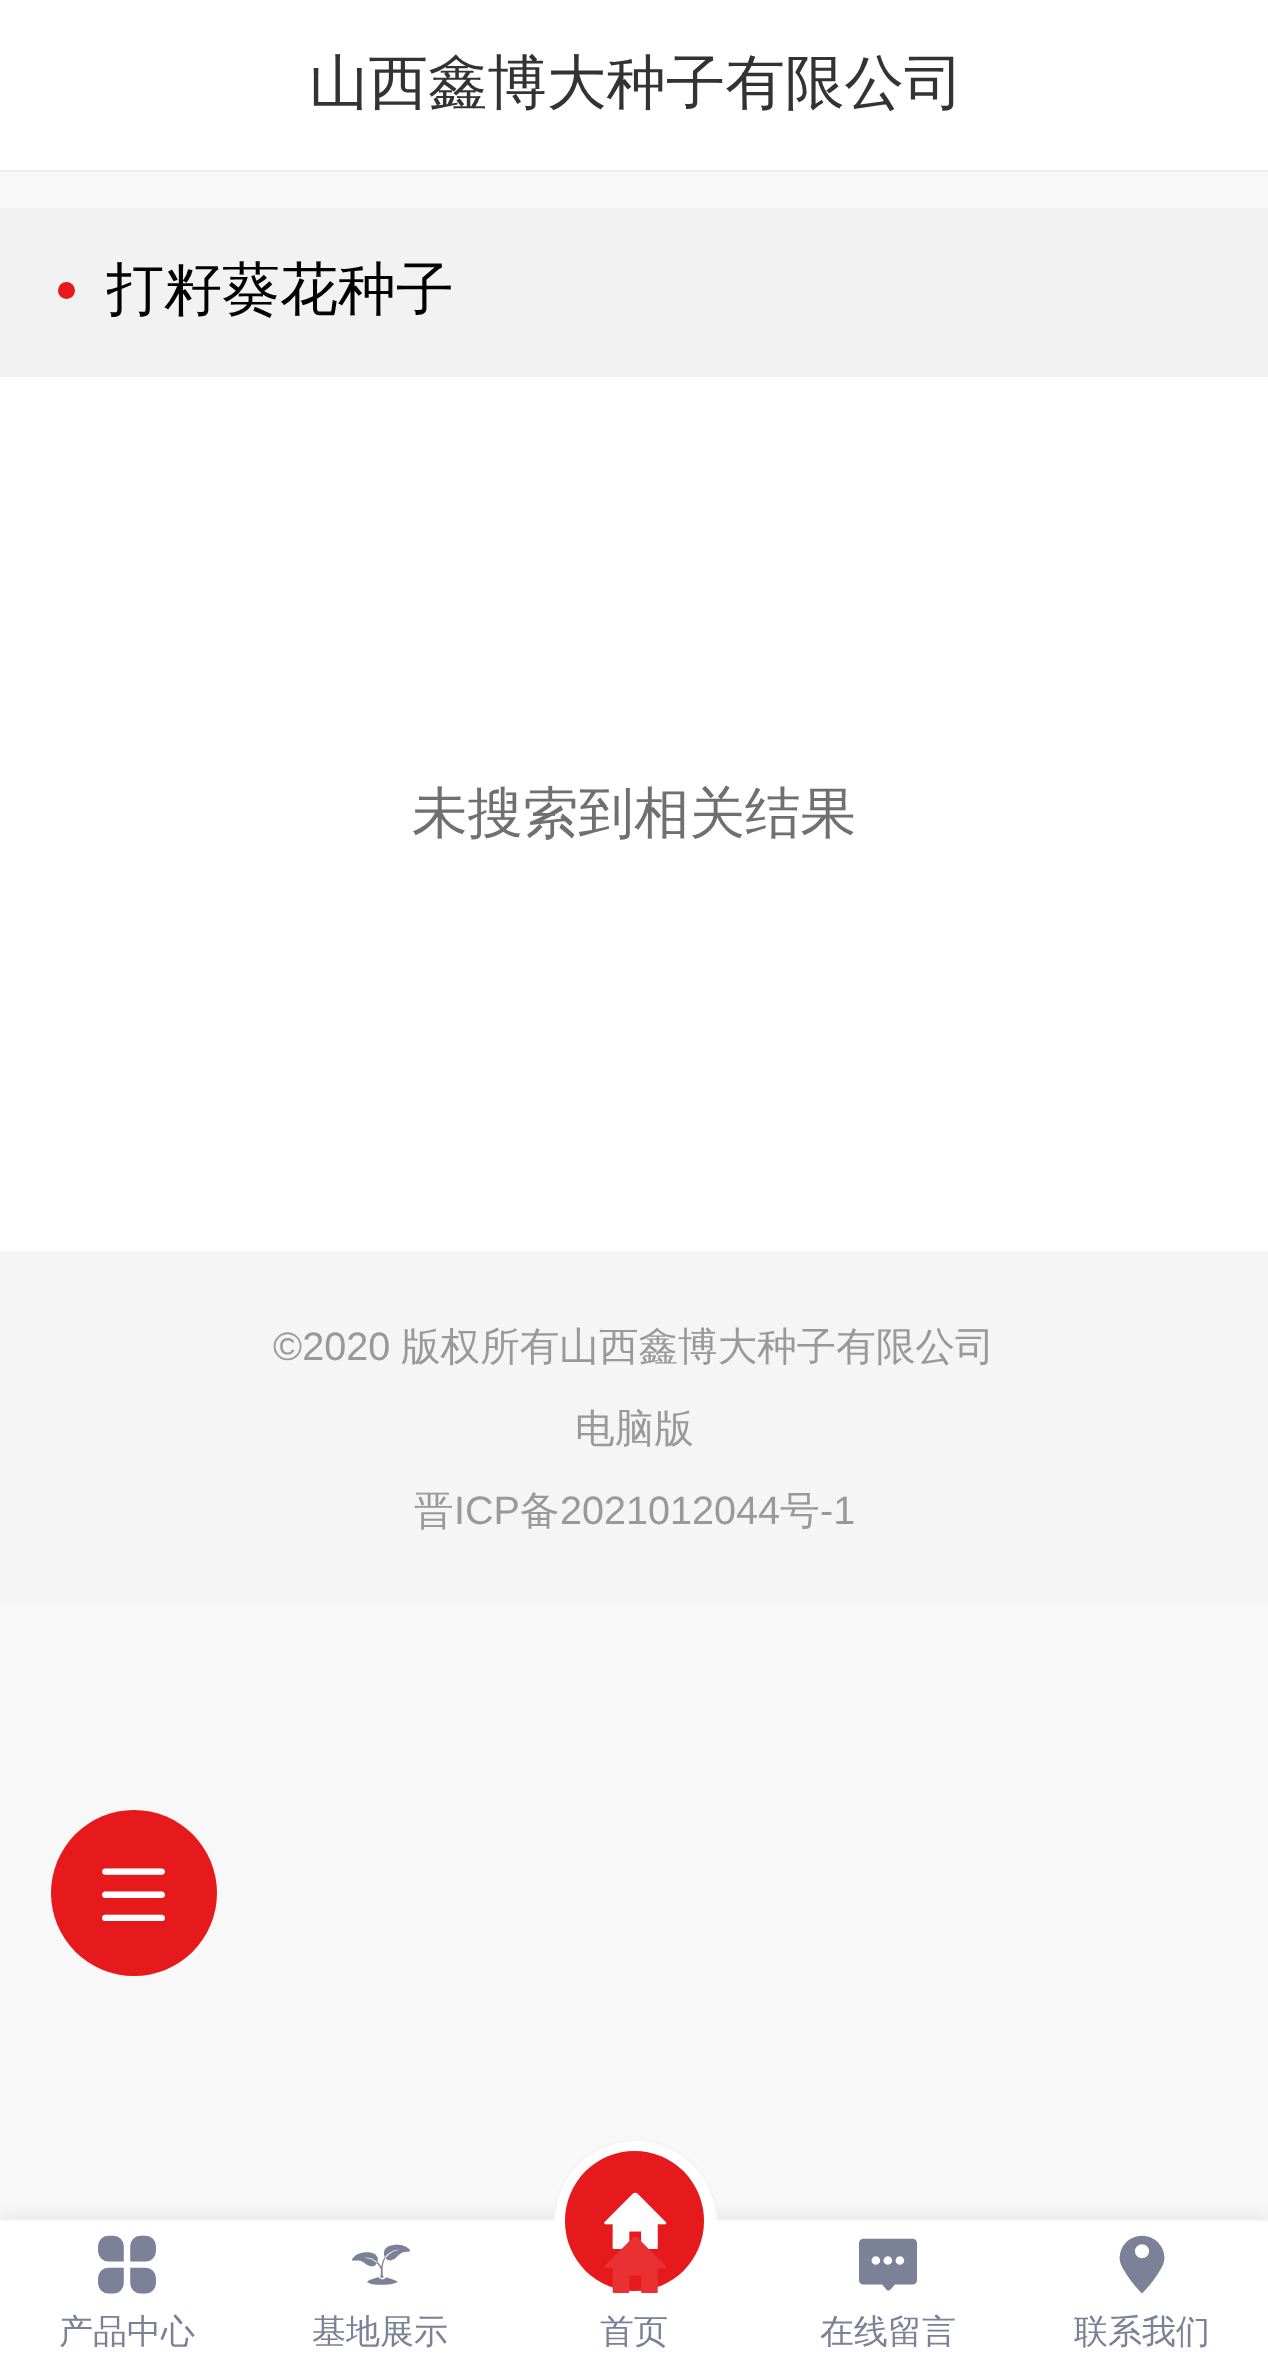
(async () => {
const canvas = document.querySelector("canvas")
canvas.width = 1268
canvas.height = 2367
const c = canvas.getContext("2d")
c.miterLimit = 4
c.fontKerning = "none"
function T(s,x,y){c.fillText(s,x,y)}
function R(x,y,w,h){c.fillRect(x,y,w,h)}
function Q(x,y,w,h,r){c.beginPath();c.roundRect(x,y,w,h,r);c.fill()}
c.fillStyle="#f8f8f8"
R(0,0,1268,2367)
c.fillStyle="#fff"
R(0,0,1268,170)
c.fillStyle="#eee"
R(0,170,1268,2)
c.font="500 59.5px WenQuanYi Zen Hei"
c.fillStyle="#333"
T("山西鑫博大种子有限公司",309,103)
c.fillStyle="#f2f2f2"
R(0,208,1268,167)
c.fillStyle="#f3f3f3"
R(0,375,1268,2)
c.fillStyle="#e6191c"
c.beginPath()
c.arc(66.5,290.5,8.5,0,7)
c.fill()
c.save()
c.beginPath()
c.rect(107,252,380,79)
c.clip()
c.font="500 58px WenQuanYi Zen Hei"
c.fillStyle="#000"
T("打籽葵花种子",106,309)
c.restore()
c.fillStyle="#fff"
R(0,377,1268,874)
c.font="500 55.5px WenQuanYi Zen Hei"
c.fillStyle="#707070"
T("未搜索到相关结果",412,832)
c.fillStyle="#f5f5f5"
R(0,1251,1268,354)
c.font="39.6px Liberation Sans"
c.fillStyle="#999"
T("©2020",273,1360)
c.font="500 39.6px WenQuanYi Zen Hei"
T("版权所有山西鑫博大种子有限公司",401,1360)
T("电脑版",575,1442)
T("晋",414,1524)
c.font="39.6px Liberation Sans"
T("ICP",454,1524)
c.font="500 39.6px WenQuanYi Zen Hei"
T("备",520,1524)
c.font="39.6px Liberation Sans"
T("2021012044",560,1524)
c.font="500 39.6px WenQuanYi Zen Hei"
T("号",780,1524)
c.font="39.6px Liberation Sans"
T("-1",820,1524)
c.fillStyle="#e6191c"
c.beginPath()
c.arc(134,1893,83,0,7)
c.fill()
c.font="63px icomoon"
c.fillStyle="#fff"
T("򰌲",102,1921)
c.fillStyle="#0000001a"
c.filter="blur(10px)"
c.beginPath()
c.rect(0,2219,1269,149)
c.fill()
c.filter="none"
c.fillStyle="#fff"
R(0,2221,1268,146)
c.fillStyle="#f4f4f4"
R(0,2219,1268,2)
c.font="58px icomoon"
c.fillStyle="#7b8196"
T("򠡄",98,2290)
c.font="500 34px WenQuanYi Zen Hei"
T("产品中心",59,2343)
c.font="58px icomoon"
T("򠥒",352,2290)
c.font="500 34px WenQuanYi Zen Hei"
T("基地展示",312,2343)
c.fillStyle="#fff"
c.beginPath()
c.roundRect(554,2140,163,164,81.5)
c.fill()
c.strokeStyle="#f4f4f4"
c.lineWidth=2
c.stroke()
R(553,2221,165,84)
c.fillStyle="#e6191c"
Q(565,2151,139,140,69.5)
c.font="62px icomoon"
c.fillStyle="#fff"
T("򠡁",604,2248)
c.fillStyle="#e93134"
T("򠡁",604,2292)
c.font="500 34px WenQuanYi Zen Hei"
c.fillStyle="#7b8196"
T("首页",600,2343)
c.font="58px icomoon"
T("򠡷",859,2290)
c.font="500 34px WenQuanYi Zen Hei"
T("在线留言",820,2343)
c.font="58px icomoon"
T("򡁷",1113,2290)
c.font="500 34px WenQuanYi Zen Hei"
T("联系我们",1074,2343)
})()
